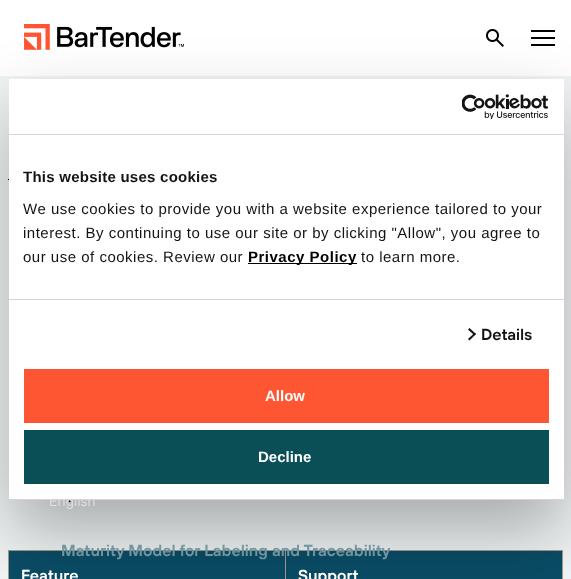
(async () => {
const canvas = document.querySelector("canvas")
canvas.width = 571
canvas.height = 579
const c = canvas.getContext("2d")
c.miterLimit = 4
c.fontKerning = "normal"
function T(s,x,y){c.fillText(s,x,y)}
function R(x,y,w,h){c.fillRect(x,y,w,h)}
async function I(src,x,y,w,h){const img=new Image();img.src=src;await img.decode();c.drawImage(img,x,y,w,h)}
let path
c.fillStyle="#f0f4f4"
R(0,0,571,579)
c.fillStyle="#fff"
R(0,0,571,76)
await I("2.png",24,24,160,26)
await I("3.png",486,29,18,18)
c.fillStyle="#000"
R(531,30,24,2)
R(531,37,24,2)
R(531,44,24,2)
R(8,179,1,1)
c.fillStyle="#0a4d66"
R(9,551,276,28)
c.fillStyle="#a29990"
R(285,550,278,1)
R(285,550,1,29)
R(8,550,278,1)
R(8,550,1,29)
c.fillStyle="#0a4d66"
R(286,551,276,28)
c.fillStyle="#a29990"
R(562,550,1,29)
c.fillStyle="#0000004d"
c.filter="blur(34px)"
c.beginPath()
c.rect(9,111,555,421)
c.fill()
c.filter="none"
c.font="16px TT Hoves"
c.fillStyle="#000"
T(".",68,502)
c.letterSpacing="0.25px"
c.font="14px TT Hoves"
c.fillStyle="#dee2e2"
T("English",49,506)
c.fillStyle="#fff"
R(9,79,555,420)
c.fillStyle="#d6d6d6"
R(9,134,555,1)
await I("1.png",462,94,86,25)
R(9,299,555,1)
c.font="bold 15px Liberation Sans"
c.fillStyle="#141414"
T("This website uses cookies",23,182)
c.letterSpacing="0.5px"
c.font="15px Liberation Sans"
T("We use cookies to provide you with a website experience tailored to your",23,214)
T("interest. By continuing to use our site or by clicking \"Allow\", you agree to",23,238)
T("our use of cookies. Review our",23,262)
c.fillStyle="#000"
R(248,263,109,1)
c.font="bold 15px Liberation Sans"
T("Privacy Policy",248,262)
c.font="15px Liberation Sans"
c.fillStyle="#141414"
T("to learn more.",361,262)
path = new Path2D("M469.5 328l6.5 6l-1.5 1.5l-6.5-6z")
c.fill(path)
path = new Path2D("M474.5 333l1.5 1l-6.5 6.5l-1.5-1.5z")
c.fill(path)
c.letterSpacing="0px"
c.font="600 16px TT Hoves"
T("Details",481,340)
c.fillStyle="#d6d6d6"
R(9,499,555,1)
c.fillStyle="#fe5532"
R(24,369,525,54)
c.font="bold 15px Liberation Sans"
c.fillStyle="#fff"
T("Allow",265,401)
c.fillStyle="#094f55"
R(24,430,525,54)
c.fillStyle="#fff"
T("Decline",258,462)
c.font="600 16px TT Hoves"
c.fillStyle="#7195a1"
T("Maturity Model for Labeling and Traceability",61,556)
c.fillStyle="#fff"
T("Feature",21,581)
T("Support",298,581)
})()
